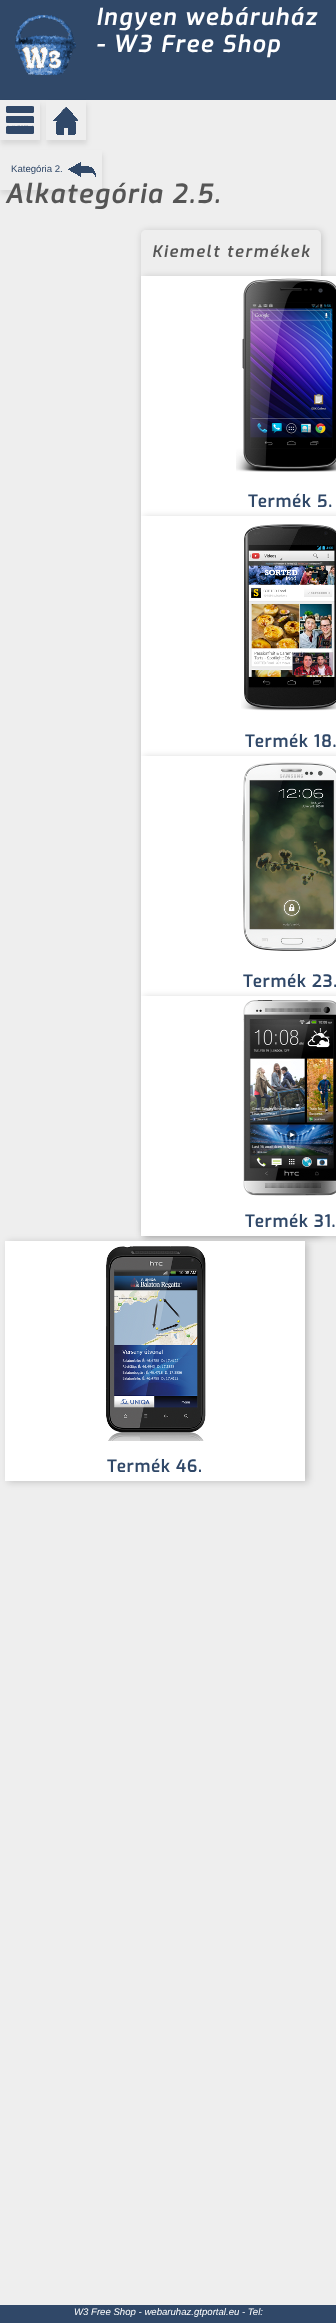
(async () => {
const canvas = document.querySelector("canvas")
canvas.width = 336
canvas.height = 2323
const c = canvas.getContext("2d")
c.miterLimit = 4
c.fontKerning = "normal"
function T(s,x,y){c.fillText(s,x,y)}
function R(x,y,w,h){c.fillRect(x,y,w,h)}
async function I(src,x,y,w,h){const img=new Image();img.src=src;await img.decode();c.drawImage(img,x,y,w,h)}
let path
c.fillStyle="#eee"
R(0,0,336,2323)
c.fillStyle="#304868"
R(0,0,336,100)
await I("1.png",15,15,61,60)
c.letterSpacing="2px"
c.font="italic bold 22.5px Exo"
c.fillStyle="#fff"
T("Ingyen webáruház",96,25)
T("- W3 Free Shop",96,52)
c.save()
path = new Path2D("M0 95h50v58h-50zm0 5h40v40h-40z")
c.clip(path,"evenodd")
c.fillStyle="#1010101a"
c.filter="blur(2.5px)"
c.beginPath()
c.rect(1,104,40,40)
c.fill()
c.filter="none"
c.restore()
await I("2.png",6,106,28,28)
c.save()
path = new Path2D("M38 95h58v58h-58zm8 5h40v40h-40z")
c.clip(path,"evenodd")
c.fillStyle="#1010101a"
c.filter="blur(2.5px)"
c.beginPath()
c.rect(47,104,40,40)
c.fill()
c.filter="none"
c.restore()
await I("3.png",53,107,25,28)
c.save()
path = new Path2D("M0 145h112v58h-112zm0 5h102v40h-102z")
c.clip(path,"evenodd")
c.fillStyle="#1010101a"
c.filter="blur(2.5px)"
c.beginPath()
c.rect(1,154,102,40)
c.fill()
c.filter="none"
c.restore()
c.letterSpacing="0px"
c.font="9.6px Liberation Sans"
c.fillStyle="#304868"
T("Kategória 2.",11,172)
await I("4.png",68,162,28,15)
c.letterSpacing="2px"
c.font="italic bold 25.5px Exo"
c.fillStyle="#555"
T("Alkategória 2.5.",5,203)
c.save()
path = new Path2D("M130 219h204v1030h-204zm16 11h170c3 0 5 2 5 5v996c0 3-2 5-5 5h-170c-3 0-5-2-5-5v-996c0-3 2-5 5-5z")
c.clip(path,"evenodd")
c.fillStyle="#10101033"
c.filter="blur(3.5px)"
c.beginPath()
c.roundRect(142,231,180,1006,5)
c.fill()
c.filter="none"
c.restore()
c.font="italic bold 15.4px Exo"
T("Kiemelt termékek",152,257)
c.fillStyle="#10101033"
c.filter="blur(3.5px)"
c.beginPath()
c.rect(144,277,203,240)
c.fill()
c.filter="none"
c.fillStyle="#fff"
R(141,276,195,240)
await I("5.png",236,278,100,194)
c.fillStyle="#10101033"
c.filter="blur(3.5px)"
c.beginPath()
c.rect(144,517,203,240)
c.fill()
c.filter="none"
c.letterSpacing="1px"
c.font="bold 16.5px Exo"
c.fillStyle="#304868"
T("Termék 5.",248,507)
c.fillStyle="#fff"
R(141,516,195,240)
await I("6.png",241,524,95,187)
c.fillStyle="#10101033"
c.filter="blur(3.5px)"
c.beginPath()
c.rect(144,757,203,240)
c.fill()
c.filter="none"
c.fillStyle="#304868"
T("Termék 18.",245,747)
c.fillStyle="#fff"
R(141,756,195,240)
await I("7.png",242,762,94,189)
c.fillStyle="#10101033"
c.filter="blur(3.5px)"
c.beginPath()
c.rect(144,997,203,240)
c.fill()
c.filter="none"
c.fillStyle="#304868"
T("Termék 23.",243,987)
c.fillStyle="#fff"
R(141,996,195,240)
await I("8.png",243,1000,93,196)
c.fillStyle="#304868"
T("Termék 31.",245,1227)
c.fillStyle="#10101033"
c.filter="blur(3.5px)"
c.beginPath()
c.rect(8,1242,300,240)
c.fill()
c.filter="none"
c.fillStyle="#fff"
R(5,1241,300,240)
await I("9.png",106,1246,100,195)
c.fillStyle="#304868"
T("Termék 46.",107,1472)
R(0,2305,336,18)
c.letterSpacing="0px"
c.font="italic 9.6px Liberation Sans"
c.fillStyle="#fff"
T("W3 Free Shop - webaruhaz.gtportal.eu - Tel:",74,2315)
})()
